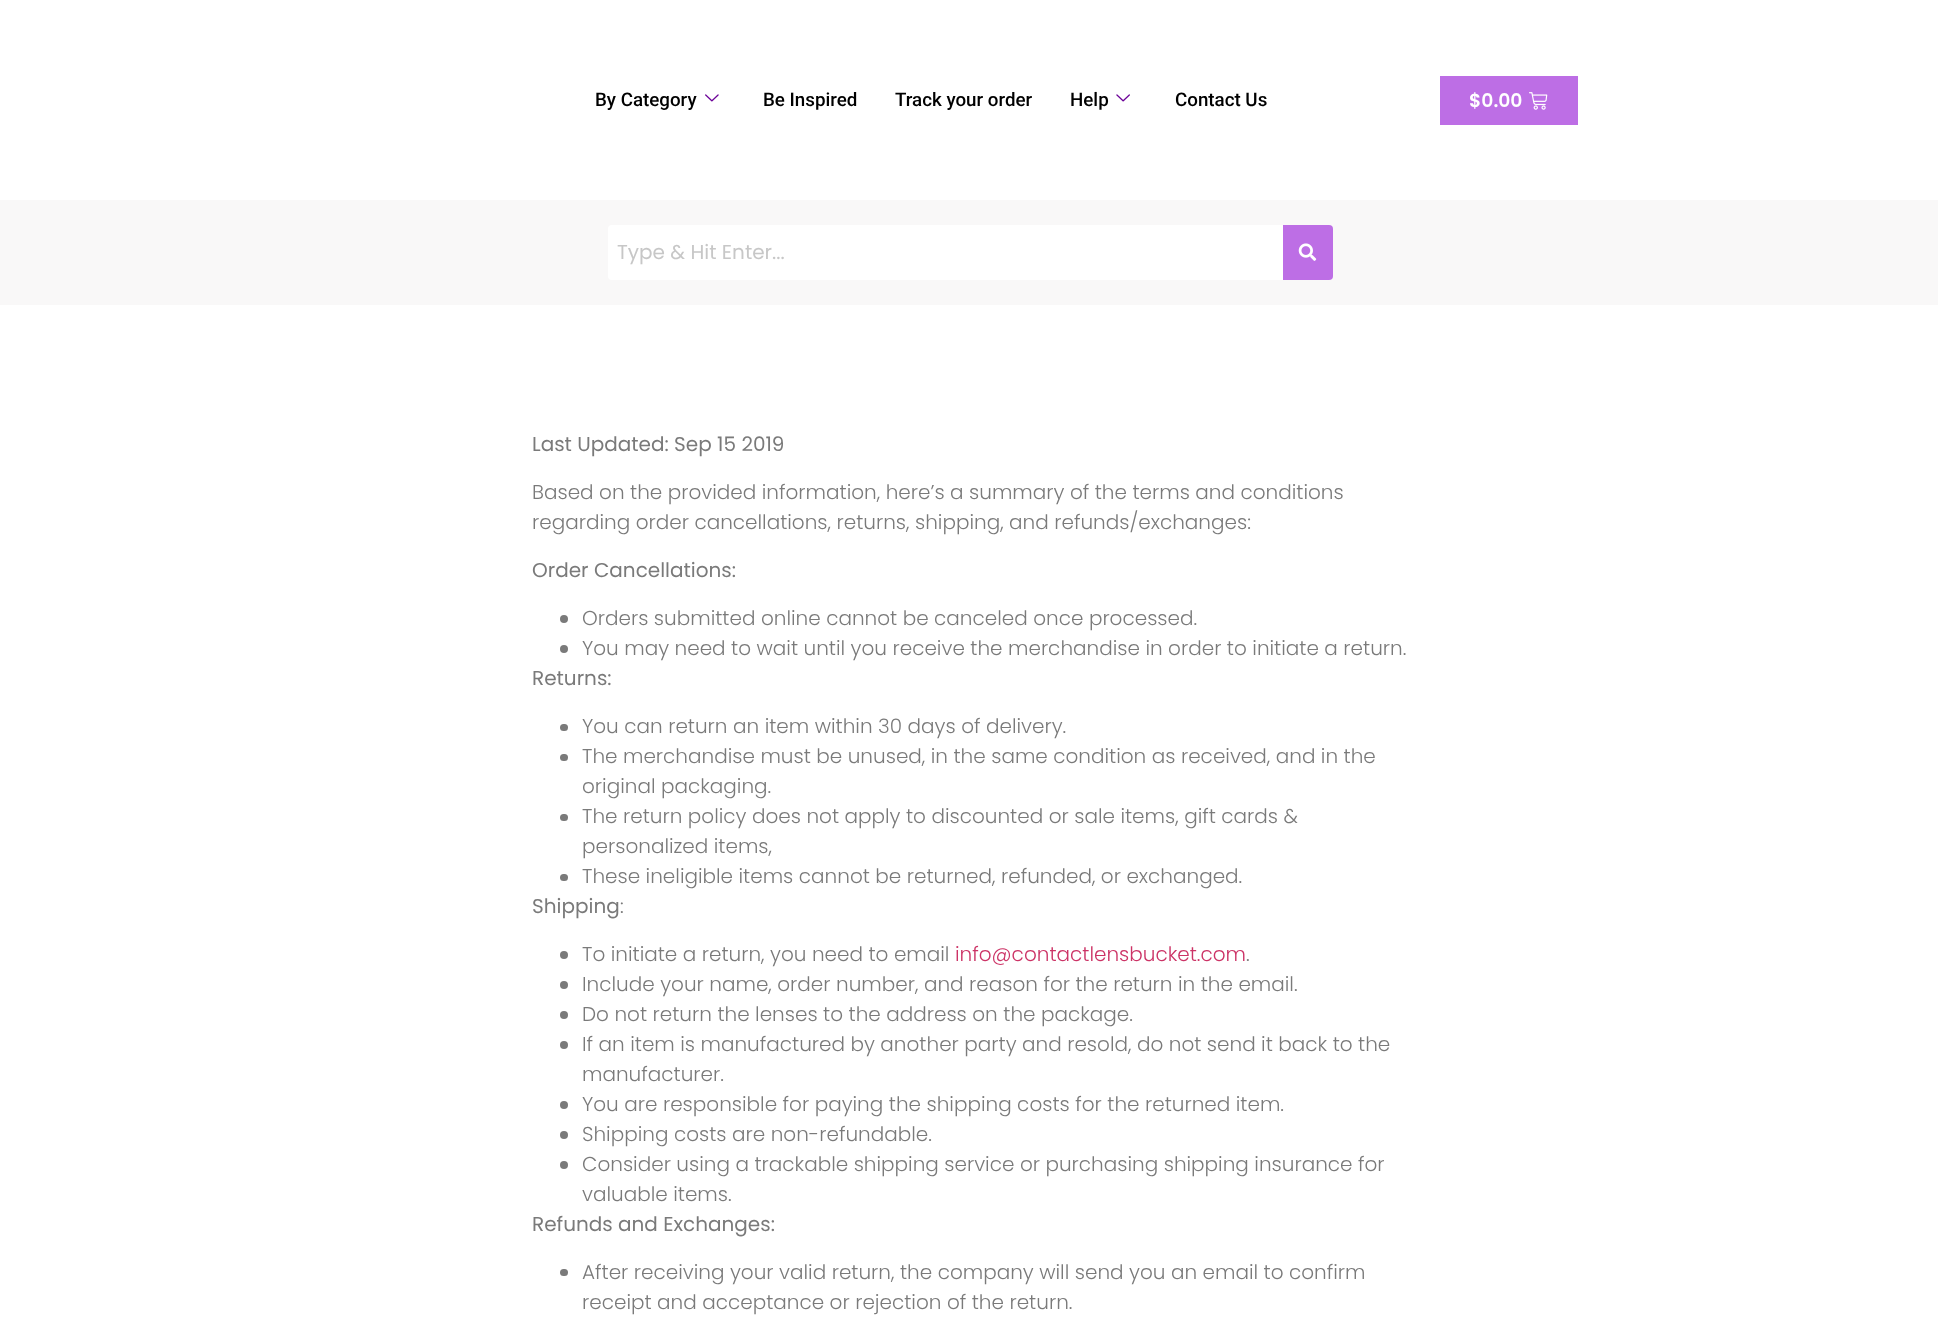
(async () => {
const canvas = document.querySelector("canvas")
canvas.width = 1938
canvas.height = 1321
const c = canvas.getContext("2d")
c.miterLimit = 4
c.fontKerning = "normal"
function T(s,x,y){c.fillText(s,x,y)}
function R(x,y,w,h){c.fillRect(x,y,w,h)}
function Q(x,y,w,h,r){c.beginPath();c.roundRect(x,y,w,h,r);c.fill()}
async function I(src,x,y,w,h){const img=new Image();img.src=src;await img.decode();c.drawImage(img,x,y,w,h)}
c.fillStyle="#fff"
R(0,0,1938,1321)
c.font="500 18.75px Roboto"
c.fillStyle="#000"
T("By Category",595,106)
await I("1.png",705,94,14,8)
T("Be Inspired",763,106)
T("Track your order",895,106)
T("Help",1070,106)
await I("2.png",1116,94,14,8)
T("Contact Us",1175,106)
c.fillStyle="#bd6ee5"
R(1440,76,138,49)
c.font="600 18.75px Poppins"
c.fillStyle="#fff"
T("$0.00",1469,107)
await I("3.png",1529,92,19,18)
c.fillStyle="#f9f8f8"
R(0,200,1938,105)
c.fillStyle="#fff"
c.beginPath()
c.roundRect(608,225,675,55,[4,0,0,4])
c.fill()
c.font="20px Poppins"
c.fillStyle="#c7c7c7"
T("Type & Hit Enter...",617,259)
c.fillStyle="#bd6ee5"
c.beginPath()
c.roundRect(1283,225,50,55,[0,4,4,0])
c.fill()
await I("4.png",1298,243,19,18)
c.fillStyle="#7a7a7a"
T("Last Updated: Sep 15 2019",532,451)
c.font="300 20px Poppins"
T("Based on the provided information, here’s a summary of the terms and conditions",532,499)
T("regarding order cancellations, returns, shipping, and refunds/exchanges:",532,529)
c.font="20px Poppins"
T("Order Cancellations:",532,577)
c.beginPath()
c.arc(564,619,4,0,7)
c.fill()
c.font="300 20px Poppins"
T("Orders submitted online cannot be canceled once processed.",582,625)
c.beginPath()
c.arc(564,649,4,0,7)
c.fill()
T("You may need to wait until you receive the merchandise in order to initiate a return.",582,655)
c.font="20px Poppins"
T("Returns:",532,685)
Q(560,724,8,7,3.5)
c.font="300 20px Poppins"
T("You can return an item within 30 days of delivery.",582,733)
Q(560,754,8,7,3.5)
T("The merchandise must be unused, in the same condition as received, and in the",582,763)
T("original packaging.",582,793)
Q(560,814,8,7,3.5)
T("The return policy does not apply to discounted or sale items, gift cards &",582,823)
T("personalized items,",582,853)
Q(560,874,8,7,3.5)
T("These ineligible items cannot be returned, refunded, or exchanged.",582,883)
c.font="20px Poppins"
T("Shipping",532,913)
c.font="300 20px Poppins"
T(":",620,913)
c.beginPath()
c.arc(564,955,4,0,7)
c.fill()
T("To initiate a return, you need to email",582,961)
c.fillStyle="#c36"
T("info@contactlensbucket.com",955,961)
c.fillStyle="#7a7a7a"
T(".",1246,961)
c.beginPath()
c.arc(564,985,4,0,7)
c.fill()
T("Include your name, order number, and reason for the return in the email.",582,991)
c.beginPath()
c.arc(564,1015,4,0,7)
c.fill()
T("Do not return the lenses to the address on the package.",582,1021)
c.beginPath()
c.arc(564,1045,4,0,7)
c.fill()
T("If an item is manufactured by another party and resold, do not send it back to the",582,1051)
T("manufacturer.",582,1081)
c.beginPath()
c.arc(564,1105,4,0,7)
c.fill()
T("You are responsible for paying the shipping costs for the returned item.",582,1111)
c.beginPath()
c.arc(564,1135,4,0,7)
c.fill()
T("Shipping costs are non-refundable.",582,1141)
c.beginPath()
c.arc(564,1165,4,0,7)
c.fill()
T("Consider using a trackable shipping service or purchasing shipping insurance for",582,1171)
T("valuable items.",582,1201)
c.font="20px Poppins"
T("Refunds and Exchanges:",532,1231)
Q(560,1269,8,7,3.5)
c.font="300 20px Poppins"
T("After receiving your valid return, the company will send you an email to confirm",582,1279)
T("receipt and acceptance or rejection of the return.",582,1309)
})()
